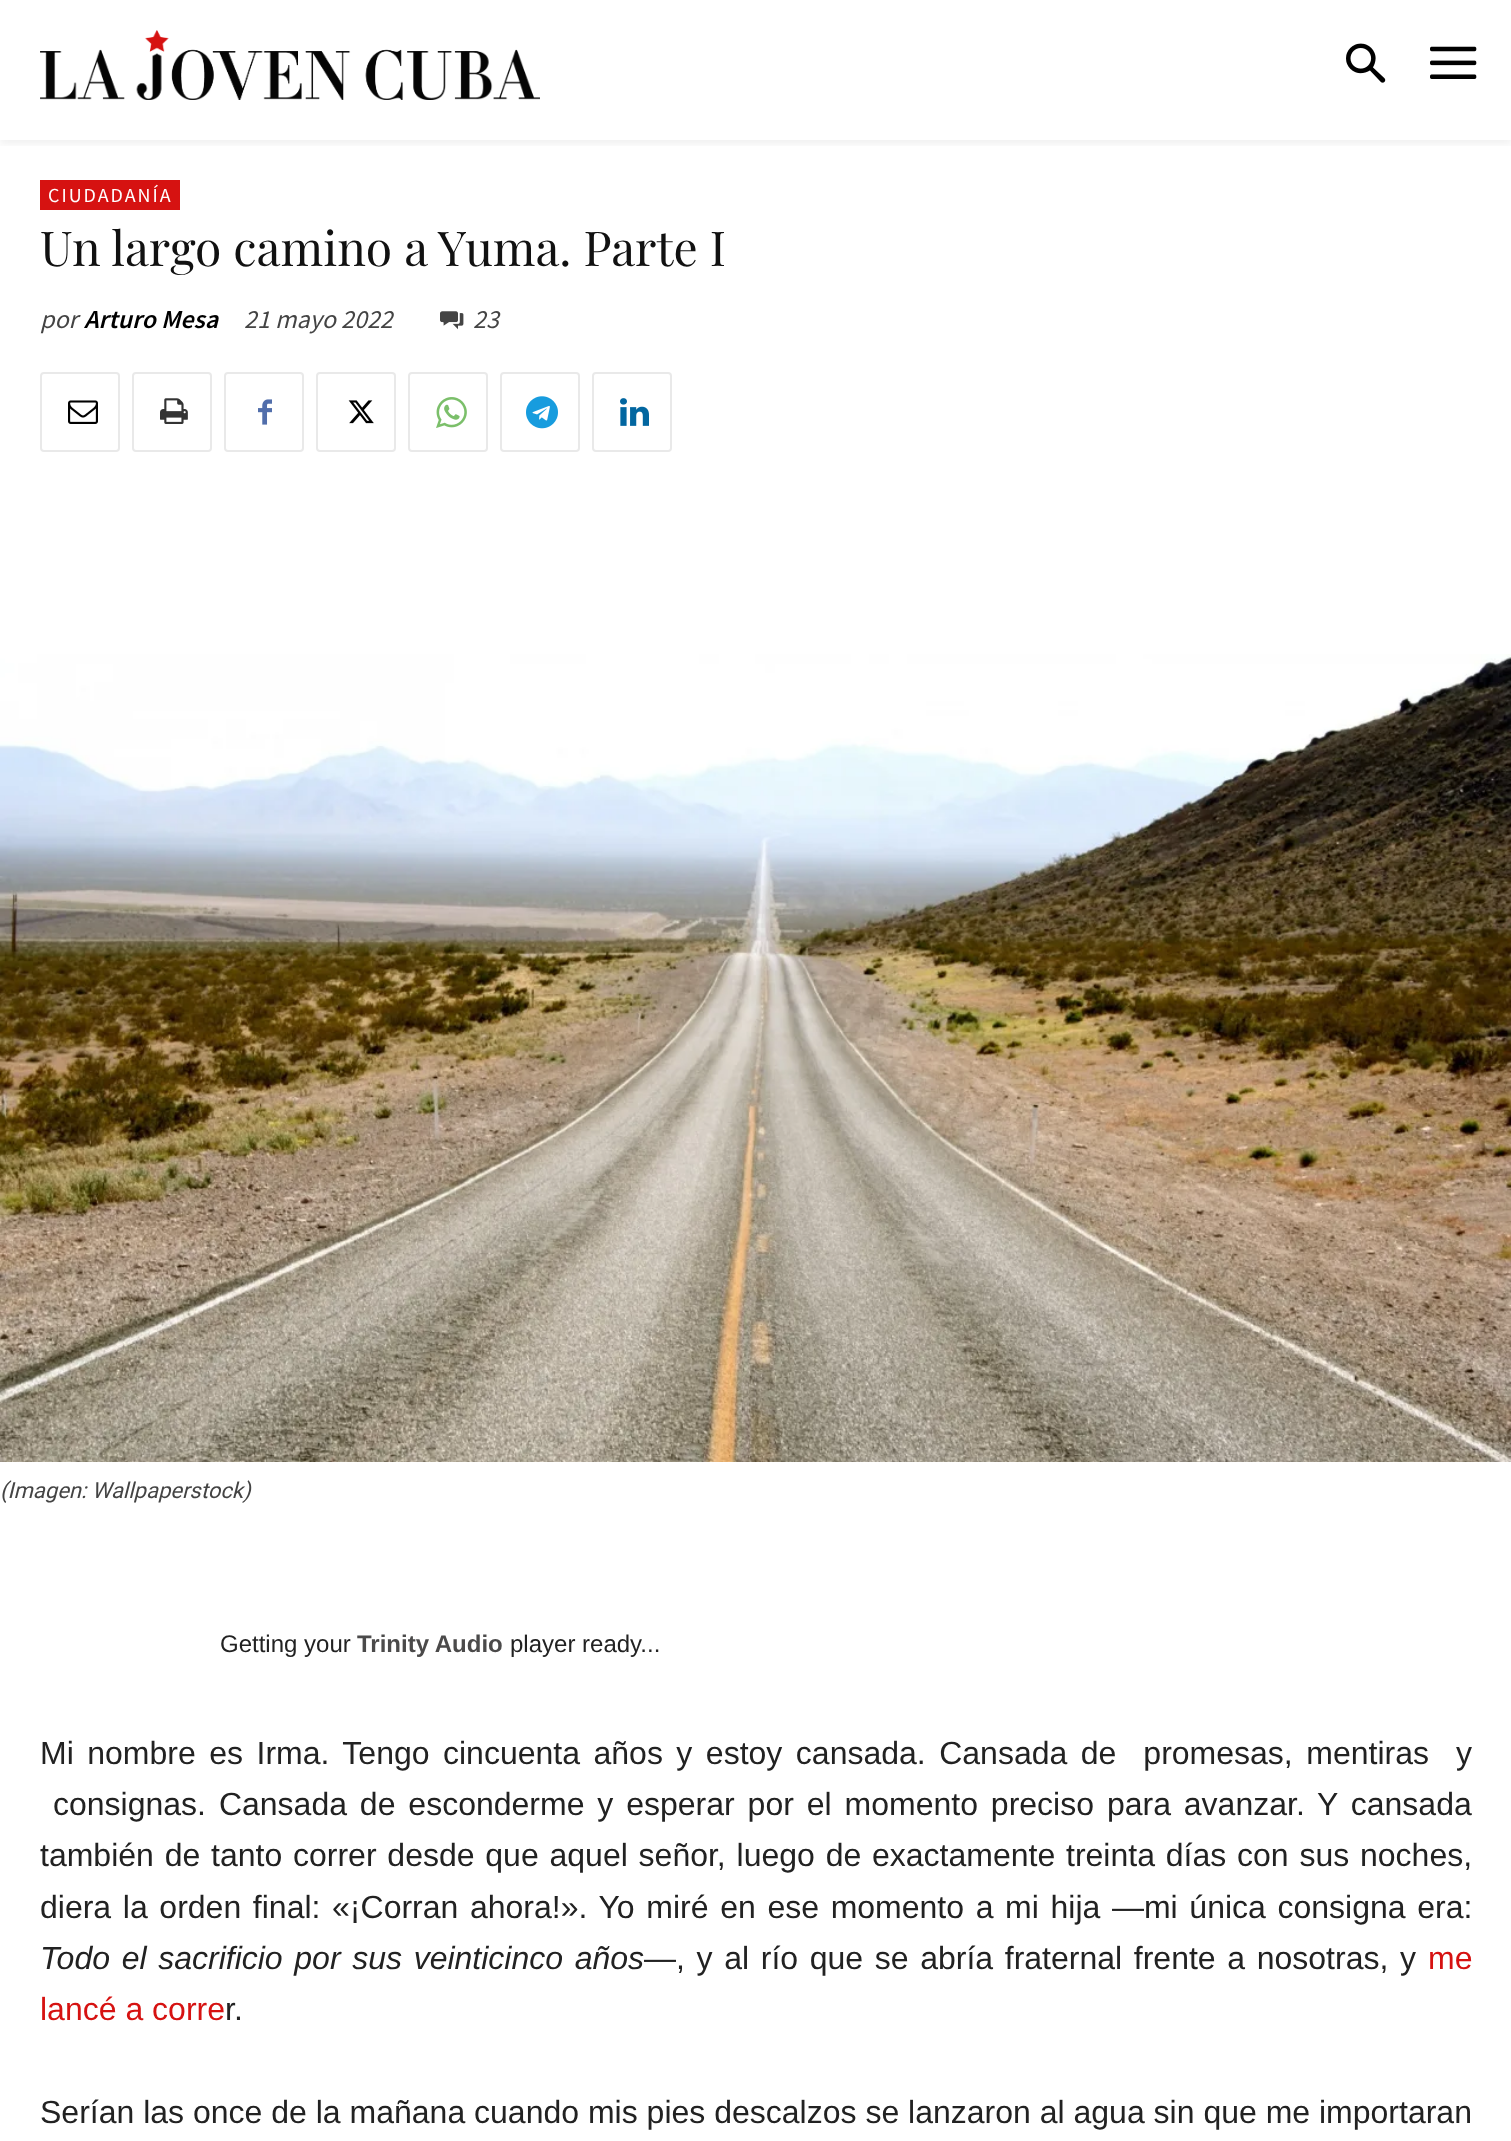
(async () => {
const canvas = document.querySelector("canvas")
canvas.width = 1511
canvas.height = 2141
const c = canvas.getContext("2d")
c.miterLimit = 4
c.fontKerning = "normal"
function T(s,x,y){c.fillText(s,x,y)}
function R(x,y,w,h){c.fillRect(x,y,w,h)}
async function I(src,x,y,w,h){const img=new Image();img.src=src;await img.decode();c.drawImage(img,x,y,w,h)}
c.fillStyle="#fff"
R(0,0,1511,2141)
await I("1.png",40,30,500,70)
await I("2.png",1346,43,40,40)
await I("3.png",1430,46,47,33)
c.save()
c.beginPath()
c.rect(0,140,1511,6)
c.clip()
c.fillStyle="#0000000f"
c.filter="blur(4px)"
c.beginPath()
c.rect(0,4,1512,140)
c.fill()
c.filter="none"
c.restore()
c.fillStyle="#d61211"
R(40,180,140,30)
c.letterSpacing="2px"
c.font="20px Source Sans Pro"
c.fillStyle="#fff"
T("CIUDADANÍA",48,202)
c.letterSpacing="0px"
c.font="48px Playfair Display"
c.fillStyle="#111"
T("Un largo camino a Yuma. Parte I",40,266)
c.font="italic 26px Source Sans Pro"
c.fillStyle="#444"
T("por",40,328)
c.font="italic 600 26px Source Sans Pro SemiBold"
c.fillStyle="#000"
T("Arturo Mesa",84,328)
c.font="italic 26px Source Sans Pro"
c.fillStyle="#444"
T("21 mayo 2022",244,328)
await I("4.png",440,311,24,19)
T("23",473,328)
c.beginPath()
c.roundRect(41,373,78,78,3)
c.strokeStyle="#e9e9e9"
c.lineWidth=2
c.stroke()
await I("5.png",68,400,30,24)
c.beginPath()
c.roundRect(133,373,78,78,3)
c.stroke()
await I("6.png",160,398,28,26)
c.beginPath()
c.roundRect(225,373,78,78,3)
c.stroke()
await I("7.png",258,399,14,26)
c.beginPath()
c.roundRect(317,373,78,78,3)
c.stroke()
await I("8.png",348,400,26,24)
c.beginPath()
c.roundRect(409,373,78,78,3)
c.stroke()
await I("9.png",436,397,31,31)
c.beginPath()
c.roundRect(501,373,78,78,3)
c.stroke()
await I("10.png",526,396,32,33)
c.beginPath()
c.roundRect(593,373,78,78,3)
c.stroke()
await I("11.png",620,398,29,28)
await I("12.png",0,654,1511,808)
c.font="italic 22px Roboto"
T("(Imagen: Wallpaperstock)",0,1498)
c.font="24px Liberation Sans"
c.fillStyle="#222"
T("Getting your",220,1652)
c.font="bold 24px Liberation Sans"
c.fillStyle="#4b4a4a"
T("Trinity Audio",357,1652)
c.font="24px Liberation Sans"
c.fillStyle="#222"
T("player ready...",510,1652)
c.wordSpacing="4.6px"
c.font="32px Liberation Sans"
T("Mi nombre es Irma. Tengo cincuenta años y estoy cansada. Cansada de  promesas, mentiras  y",40,1764)
c.wordSpacing="4px"
T("consignas. Cansada de esconderme y esperar por el momento preciso para avanzar. Y cansada",53,1815)
c.wordSpacing="1.9px"
T("también de tanto correr desde que aquel señor, luego de exactamente treinta días con sus noches,",40,1866)
c.wordSpacing="2.75px"
T("diera la orden final: «¡Corran ahora!». Yo miré en ese momento a mi hija —mi única consigna era:",40,1918)
c.font="italic 32px Liberation Sans"
T("Todo el sacrificio por sus veinticinco años",40,1969)
c.font="32px Liberation Sans"
T("—, y al río que se abría fraternal frente a nosotras, y",644,1969)
c.wordSpacing="0px"
c.fillStyle="#d61211"
T("me",1428,1969)
T("lancé a corre",40,2020)
c.fillStyle="#222"
T("r.",225,2020)
T("Serían las once de la mañana cuando mis pies descalzos se lanzaron al agua sin que me importaran",40,2123)
})()
